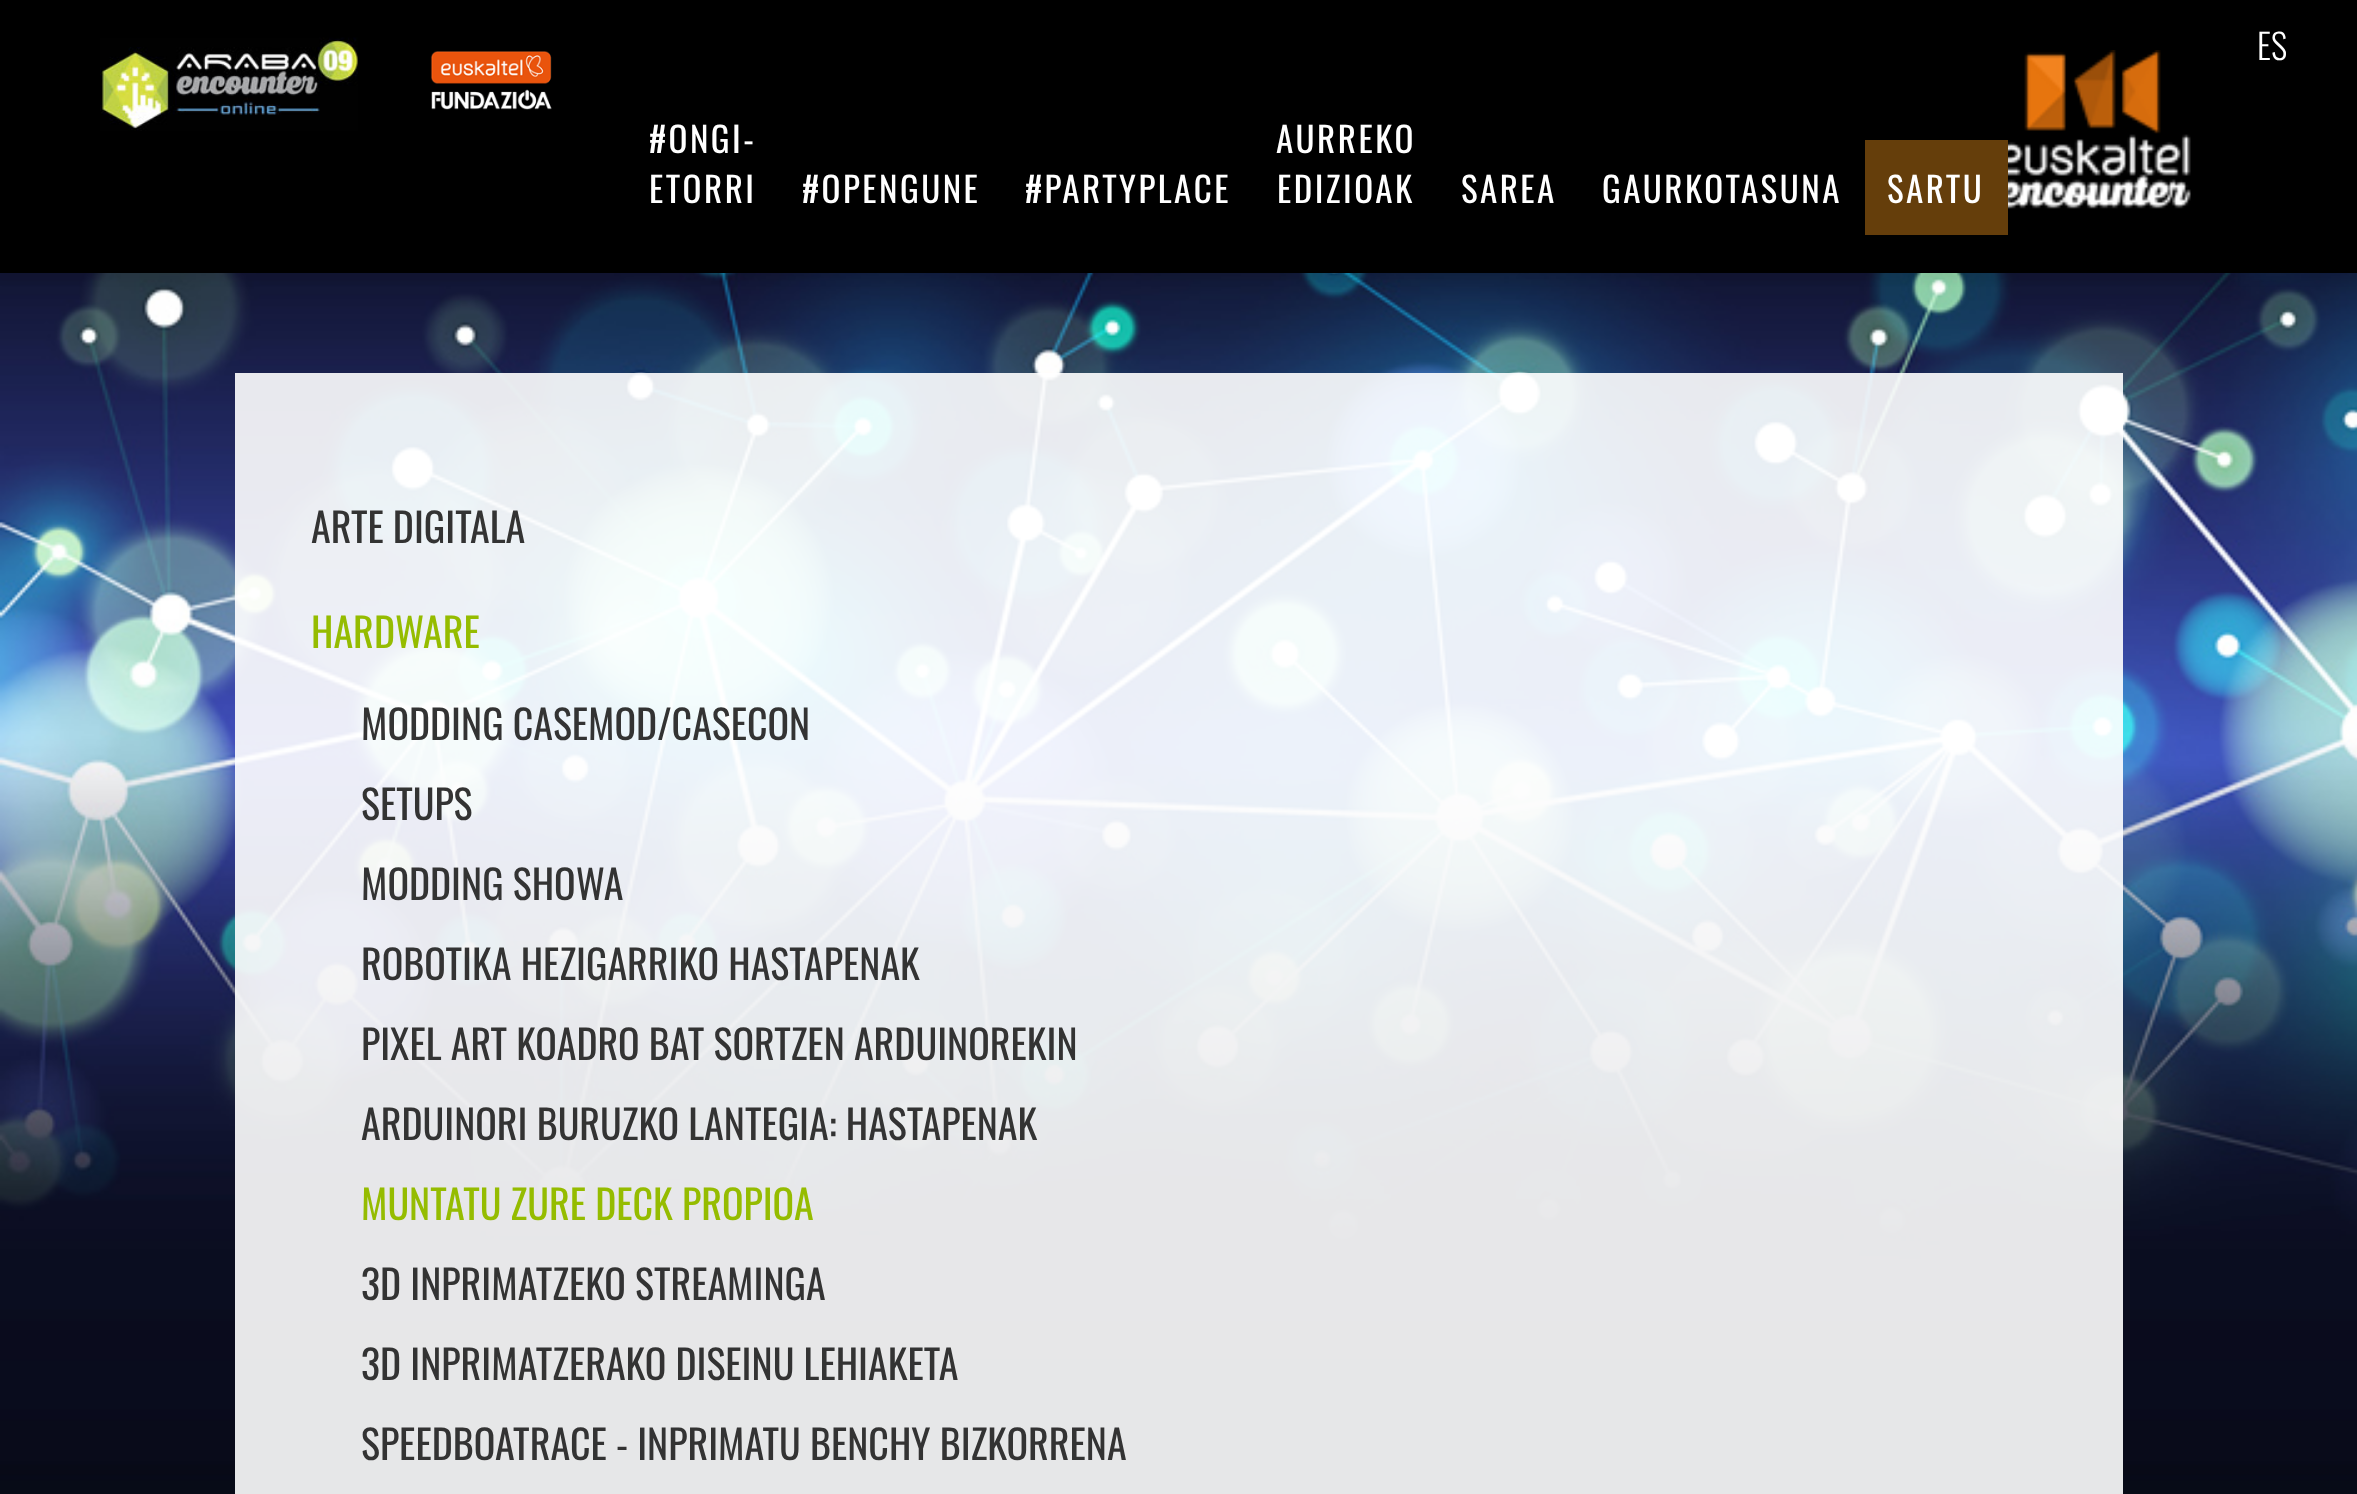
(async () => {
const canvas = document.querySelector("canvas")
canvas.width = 2357
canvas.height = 1494
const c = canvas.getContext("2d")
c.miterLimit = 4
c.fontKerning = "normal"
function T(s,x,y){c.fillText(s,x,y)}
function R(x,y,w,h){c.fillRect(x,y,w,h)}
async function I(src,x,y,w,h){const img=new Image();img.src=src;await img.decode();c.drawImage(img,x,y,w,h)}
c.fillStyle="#fff"
R(0,0,2357,1494)
await I("1.png",0,273,2357,1221)
c.fillStyle="#0000000d"
c.filter="blur(4px)"
c.beginPath()
c.rect(0,8,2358,272)
c.fill()
c.filter="none"
c.fillStyle="#000"
R(0,0,2357,273)
await I("2.png",100,37,258,94)
await I("3.png",430,51,122,59)
c.font="300 35px Oswald"
c.fillStyle="#fff"
T("ES",2257,60)
await I("4.png",2008,50,183,159)
c.letterSpacing="2.5px"
c.font="35px Oswald"
T("#ONGI-",649,153)
T("ETORRI",649,203)
T("#OPENGUNE",802,203)
T("#PARTYPLACE",1025,203)
T("AURREKO",1276,153)
T("EDIZIOAK",1277,203)
T("SAREA",1461,203)
T("GAURKOTASUNA",1602,203)
c.fillStyle="#653e0b"
R(1865,140,143,95)
c.fillStyle="#fff"
T("SARTU",1887,203)
c.fillStyle="#ffffffe6"
R(235,373,1888,1121)
c.letterSpacing="0px"
c.font="40px Oswald"
c.fillStyle="#333"
T("ARTE DIGITALA",311,543)
c.fillStyle="#95bc00"
T("HARDWARE",311,648)
c.fillStyle="#333"
T("MODDING CASEMOD/CASECON",361,740)
T("SETUPS",361,820)
T("MODDING SHOWA",361,900)
T("ROBOTIKA HEZIGARRIKO HASTAPENAK",361,980)
T("PIXEL ART KOADRO BAT SORTZEN ARDUINOREKIN",361,1060)
T("ARDUINORI BURUZKO LANTEGIA: HASTAPENAK",361,1140)
c.fillStyle="#95bc00"
T("MUNTATU ZURE DECK PROPIOA",361,1220)
c.fillStyle="#333"
T("3D INPRIMATZEKO STREAMINGA",361,1300)
T("3D INPRIMATZERAKO DISEINU LEHIAKETA",361,1380)
T("SPEEDBOATRACE - INPRIMATU BENCHY BIZKORRENA",361,1460)
})()
